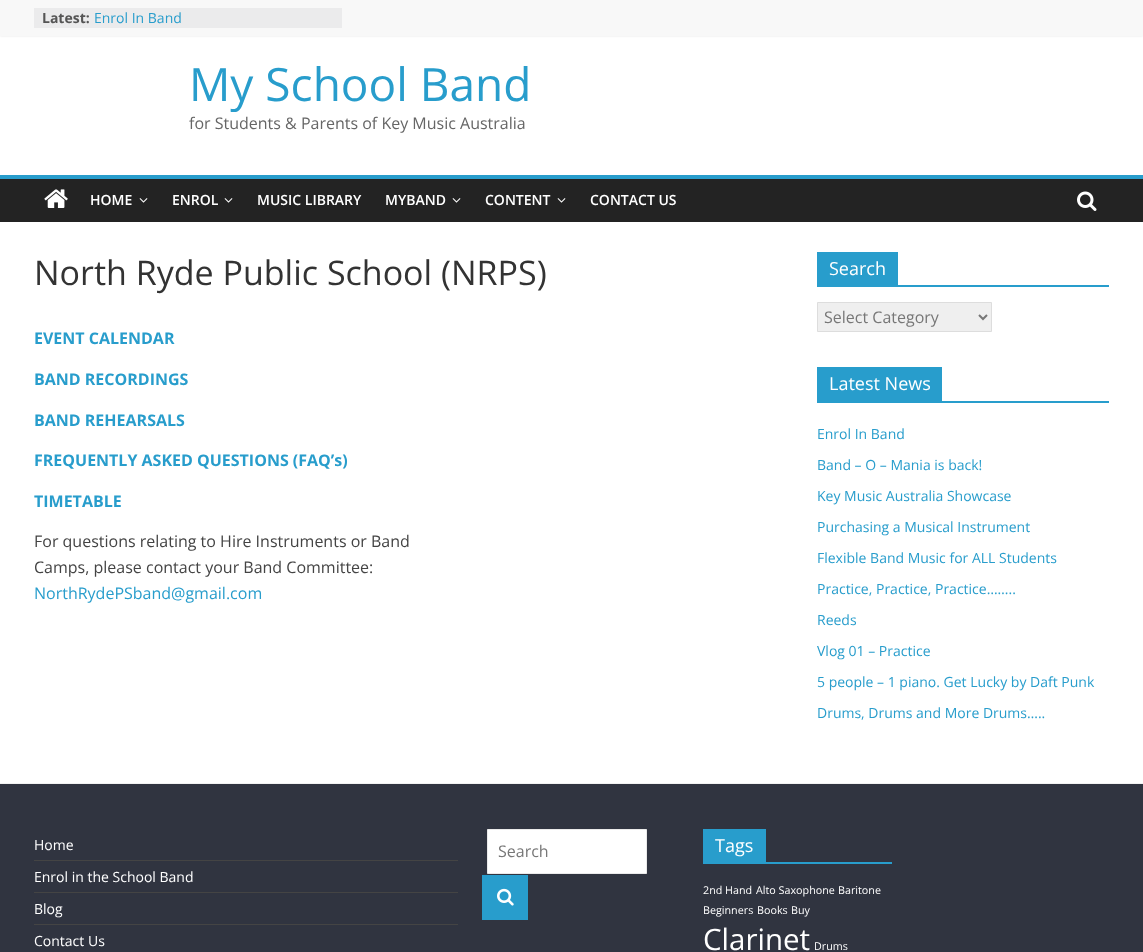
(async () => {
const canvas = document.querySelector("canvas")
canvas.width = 1143
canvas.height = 952
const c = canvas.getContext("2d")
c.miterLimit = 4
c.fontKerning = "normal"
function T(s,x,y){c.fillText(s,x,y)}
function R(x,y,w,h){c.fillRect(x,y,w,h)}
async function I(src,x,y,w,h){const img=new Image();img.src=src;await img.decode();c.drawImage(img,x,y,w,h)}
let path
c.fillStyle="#fff"
R(0,0,1143,952)
c.fillStyle="#0000001a"
c.filter="blur(1px)"
c.beginPath()
c.rect(0,0,1143,36)
c.fill()
c.filter="none"
c.fillStyle="#f8f8f8"
R(0,0,1143,36)
c.fillStyle="#ebebec"
R(34,8,308,20)
c.font="bold 14px Open Sans"
c.fillStyle="#555"
T("Latest:",42,23)
c.font="14px Open Sans"
c.fillStyle="#289dcc"
T("Enrol In Band",94,23)
c.font="46px Open Sans"
T("My School Band",189,101)
c.font="16px Open Sans"
c.fillStyle="#666"
T("for Students & Parents of Key Music Australia",189,129)
c.fillStyle="#232323"
R(0,179,1143,43)
c.fillStyle="#289dcc"
R(0,175,1143,4)
await I("1.png",44,189,24,19)
c.font="600 14px Open Sans"
c.fillStyle="#fff"
T("HOME",90,205)
await I("2.png",139,198,9,5)
T("ENROL",172,205)
await I("2.png",224,198,9,5)
T("MUSIC LIBRARY",257,205)
T("MYBAND",385,205)
await I("2.png",452,198,9,5)
T("CONTENT",485,205)
await I("2.png",557,198,9,5)
T("CONTACT US",590,205)
await I("3.png",1077,191,20,20)
c.font="34px Open Sans"
c.fillStyle="#333"
T("North Ryde Public School (NRPS)",34,285)
c.font="bold 16px Open Sans"
c.fillStyle="#289dcc"
T("EVENT CALENDAR",34,344)
T("BAND RECORDINGS",34,385)
T("BAND REHEARSALS",34,426)
T("FREQUENTLY ASKED QUESTIONS (FAQ’s)",34,466)
T("TIMETABLE",34,507)
c.font="16px Open Sans"
c.fillStyle="#444"
T("For questions relating to Hire Instruments or Band",34,547)
T("Camps, please contact your Band Committee:",34,573)
c.fillStyle="#289dcc"
T("NorthRydePSband@gmail.com",34,599)
R(817,285,292,2)
R(817,252,81,33)
c.font="18px Open Sans"
c.fillStyle="#fff"
T("Search",829,275)
c.fillStyle="#efefef"
c.beginPath()
c.rect(817.5,302.5,174,29)
c.fill()
c.strokeStyle="#ddd"
c.stroke()
path = new Path2D("M979 315l4 4l4-4")
c.strokeStyle="#777"
c.lineWidth=2
c.stroke(path)
c.font="16px Open Sans"
c.fillStyle="#777"
T("Select Category",824,323)
c.fillStyle="#289dcc"
R(817,401,292,2)
R(817,367,125,34)
c.font="18px Open Sans"
c.fillStyle="#fff"
T("Latest News",829,390)
c.font="14px Open Sans"
c.fillStyle="#289dcc"
T("Enrol In Band",817,439)
T("Band – O – Mania is back!",817,470)
T("Key Music Australia Showcase",817,501)
T("Purchasing a Musical Instrument",817,532)
T("Flexible Band Music for ALL Students",817,563)
T("Practice, Practice, Practice……..",817,594)
T("Reeds",817,625)
T("Vlog 01 – Practice",817,656)
T("5 people – 1 piano. Get Lucky by Daft Punk",817,687)
T("Drums, Drums and More Drums…..",817,718)
c.fillStyle="#303440"
R(0,784,1143,168)
c.fillStyle="#f2f2f2"
R(0,783,1143,1)
c.fillStyle="#444"
R(34,860,424,1)
c.fillStyle="#fff"
T("Home",34,850)
c.fillStyle="#444"
R(34,892,424,1)
c.fillStyle="#fff"
T("Enrol in the School Band",34,882)
c.fillStyle="#444"
R(34,924,424,1)
c.fillStyle="#fff"
T("Blog",34,914)
T("Contact Us",34,946)
c.beginPath()
c.rect(487.5,829.5,159,44)
c.fill()
c.strokeStyle="#eaeaea"
c.lineWidth=1
c.stroke()
c.font="16px Open Sans"
c.fillStyle="#777"
T("Search",498,857)
c.fillStyle="#289dcc"
R(482,875,46,45)
await I("4.png",497,888,17,18)
R(703,862,189,2)
R(703,829,63,33)
c.font="18px Open Sans"
c.fillStyle="#fff"
T("Tags",715,852)
c.font="10.75px Open Sans"
T("2nd Hand",703,894)
T("Alto Saxophone",756,894)
T("Baritone",838,894)
T("Beginners",703,914)
T("Books",757,914)
T("Buy",791,914)
c.font="29.5px Open Sans"
T("Clarinet",703,950)
c.font="10.75px Open Sans"
T("Drums",814,950)
})()
